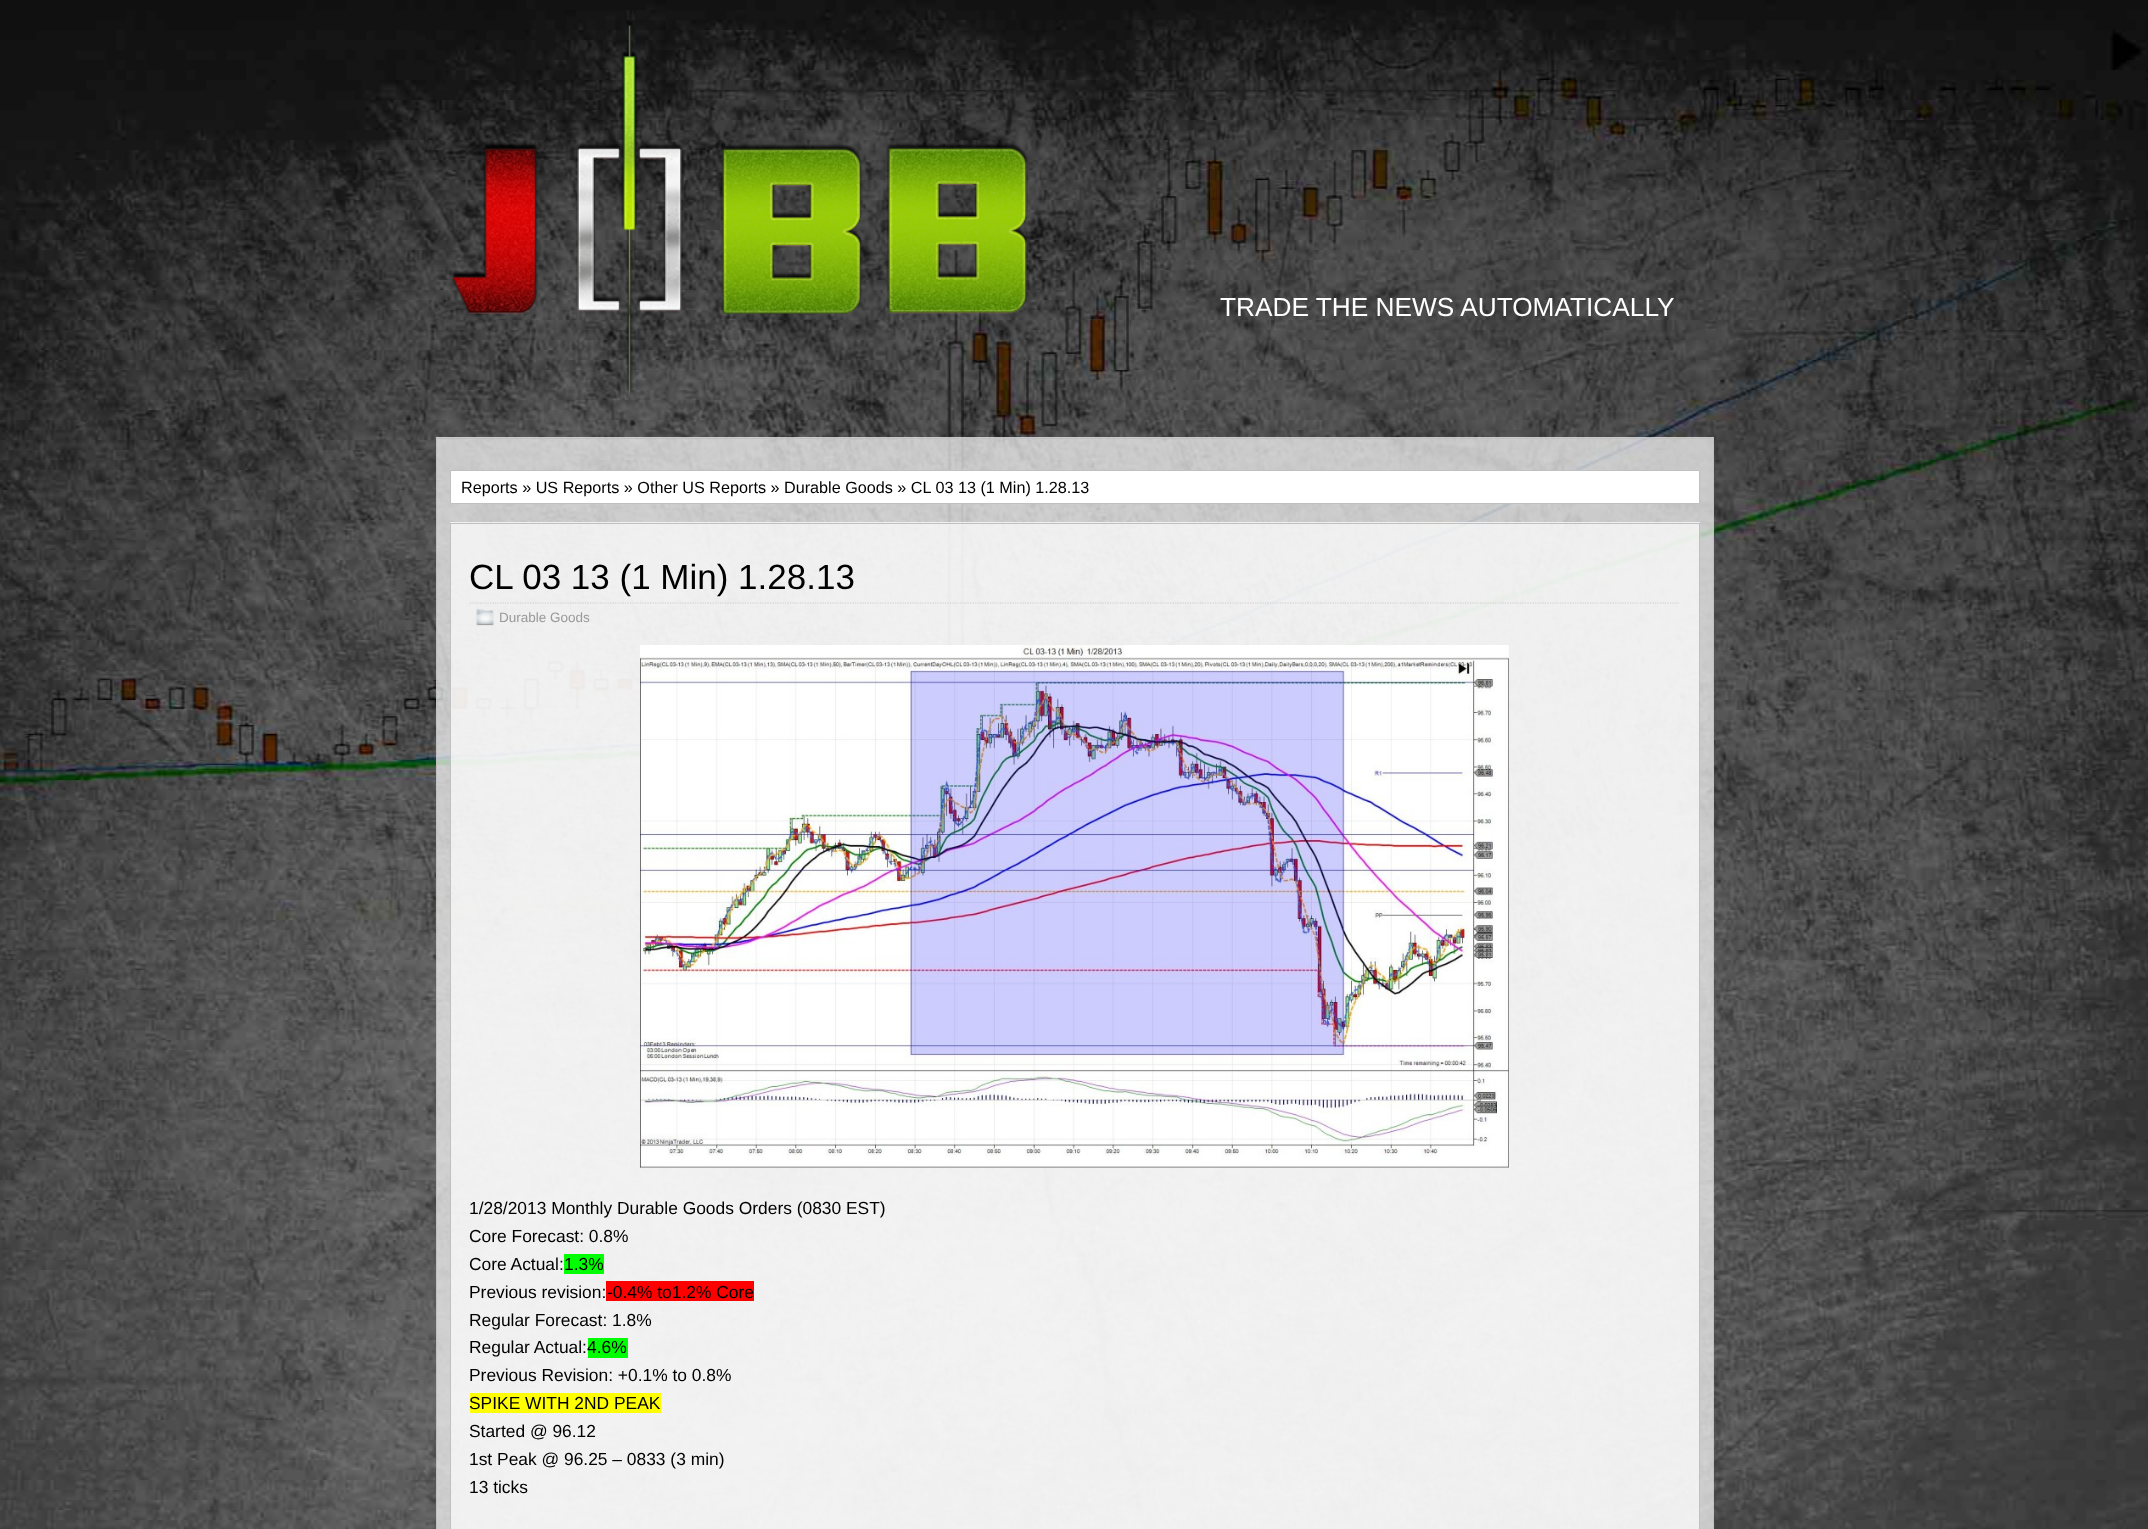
(async () => {
const canvas = document.querySelector("canvas")
canvas.width = 2148
canvas.height = 1529
const c = canvas.getContext("2d")
c.miterLimit = 4
c.fontKerning = "normal"
function T(s,x,y){c.fillText(s,x,y)}
function R(x,y,w,h){c.fillRect(x,y,w,h)}
async function I(src,x,y,w,h){const img=new Image();img.src=src;await img.decode();c.drawImage(img,x,y,w,h)}
let path
c.fillStyle="#fff"
R(0,0,2148,1529)
await I("1.png",0,0,2148,1529)
await I("2.png",451,21,577,373)
c.font="26.25px Liberation Sans"
T("TRADE THE NEWS AUTOMATICALLY",1220,316)
c.fillStyle="#ffffffb3"
R(436,437,1278,1092)
c.strokeStyle="#c0c0c0"
c.strokeRect(436.5,438.5,1277,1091)
c.fillStyle="#fff"
c.beginPath()
c.rect(450.5,470.5,1249,33)
c.fill()
c.stroke()
c.font="16.2px Liberation Sans"
c.fillStyle="#000"
T("Reports » US Reports » Other US Reports » Durable Goods » CL 03 13 (1 Min) 1.28.13",461,493)
c.fillStyle="#ffffffb3"
R(450,522,1250,1007)
c.strokeRect(450.5,523.5,1249,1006)
path = new Path2D("M470 603h1210")
c.strokeStyle="#ccc"
c.lineWidth=1.2
c.setLineDash([1.25,1.25])
c.stroke(path)
c.font="35px Liberation Sans"
c.fillStyle="#000"
T("CL 03 13 (1 Min) 1.28.13",469,589)
await I("3.png",476,608,18,18)
c.font="13.5px Liberation Sans"
c.fillStyle="#999"
T("Durable Goods",499,622)
await I("4.png",640,645,869,523)
c.font="17.4px Liberation Sans"
c.fillStyle="#000"
T("1/28/2013 Monthly Durable Goods Orders (0830 EST)",469,1214)
T("Core Forecast: 0.8%",469,1242)
T("Core Actual:",469,1270)
c.fillStyle="#0f0"
R(564,1254,40,20)
c.fillStyle="#000"
T("1.3%",564,1270)
T("Previous revision:",469,1298)
c.fillStyle="#f00"
R(606,1281,148,20)
c.fillStyle="#000"
T("-0.4% to1.2% Core",607,1298)
T("Regular Forecast: 1.8%",469,1326)
T("Regular Actual:",469,1353)
c.fillStyle="#0f0"
R(588,1338,40,20)
c.fillStyle="#000"
T("4.6%",587,1353)
T("Previous Revision: +0.1% to 0.8%",469,1381)
c.fillStyle="#ff0"
R(470,1393,191,20)
c.fillStyle="#000"
T("SPIKE WITH 2ND PEAK",469,1409)
T("Started @ 96.12",469,1437)
T("1st Peak @ 96.25 – 0833 (3 min)",469,1465)
T("13 ticks",469,1493)
})()
